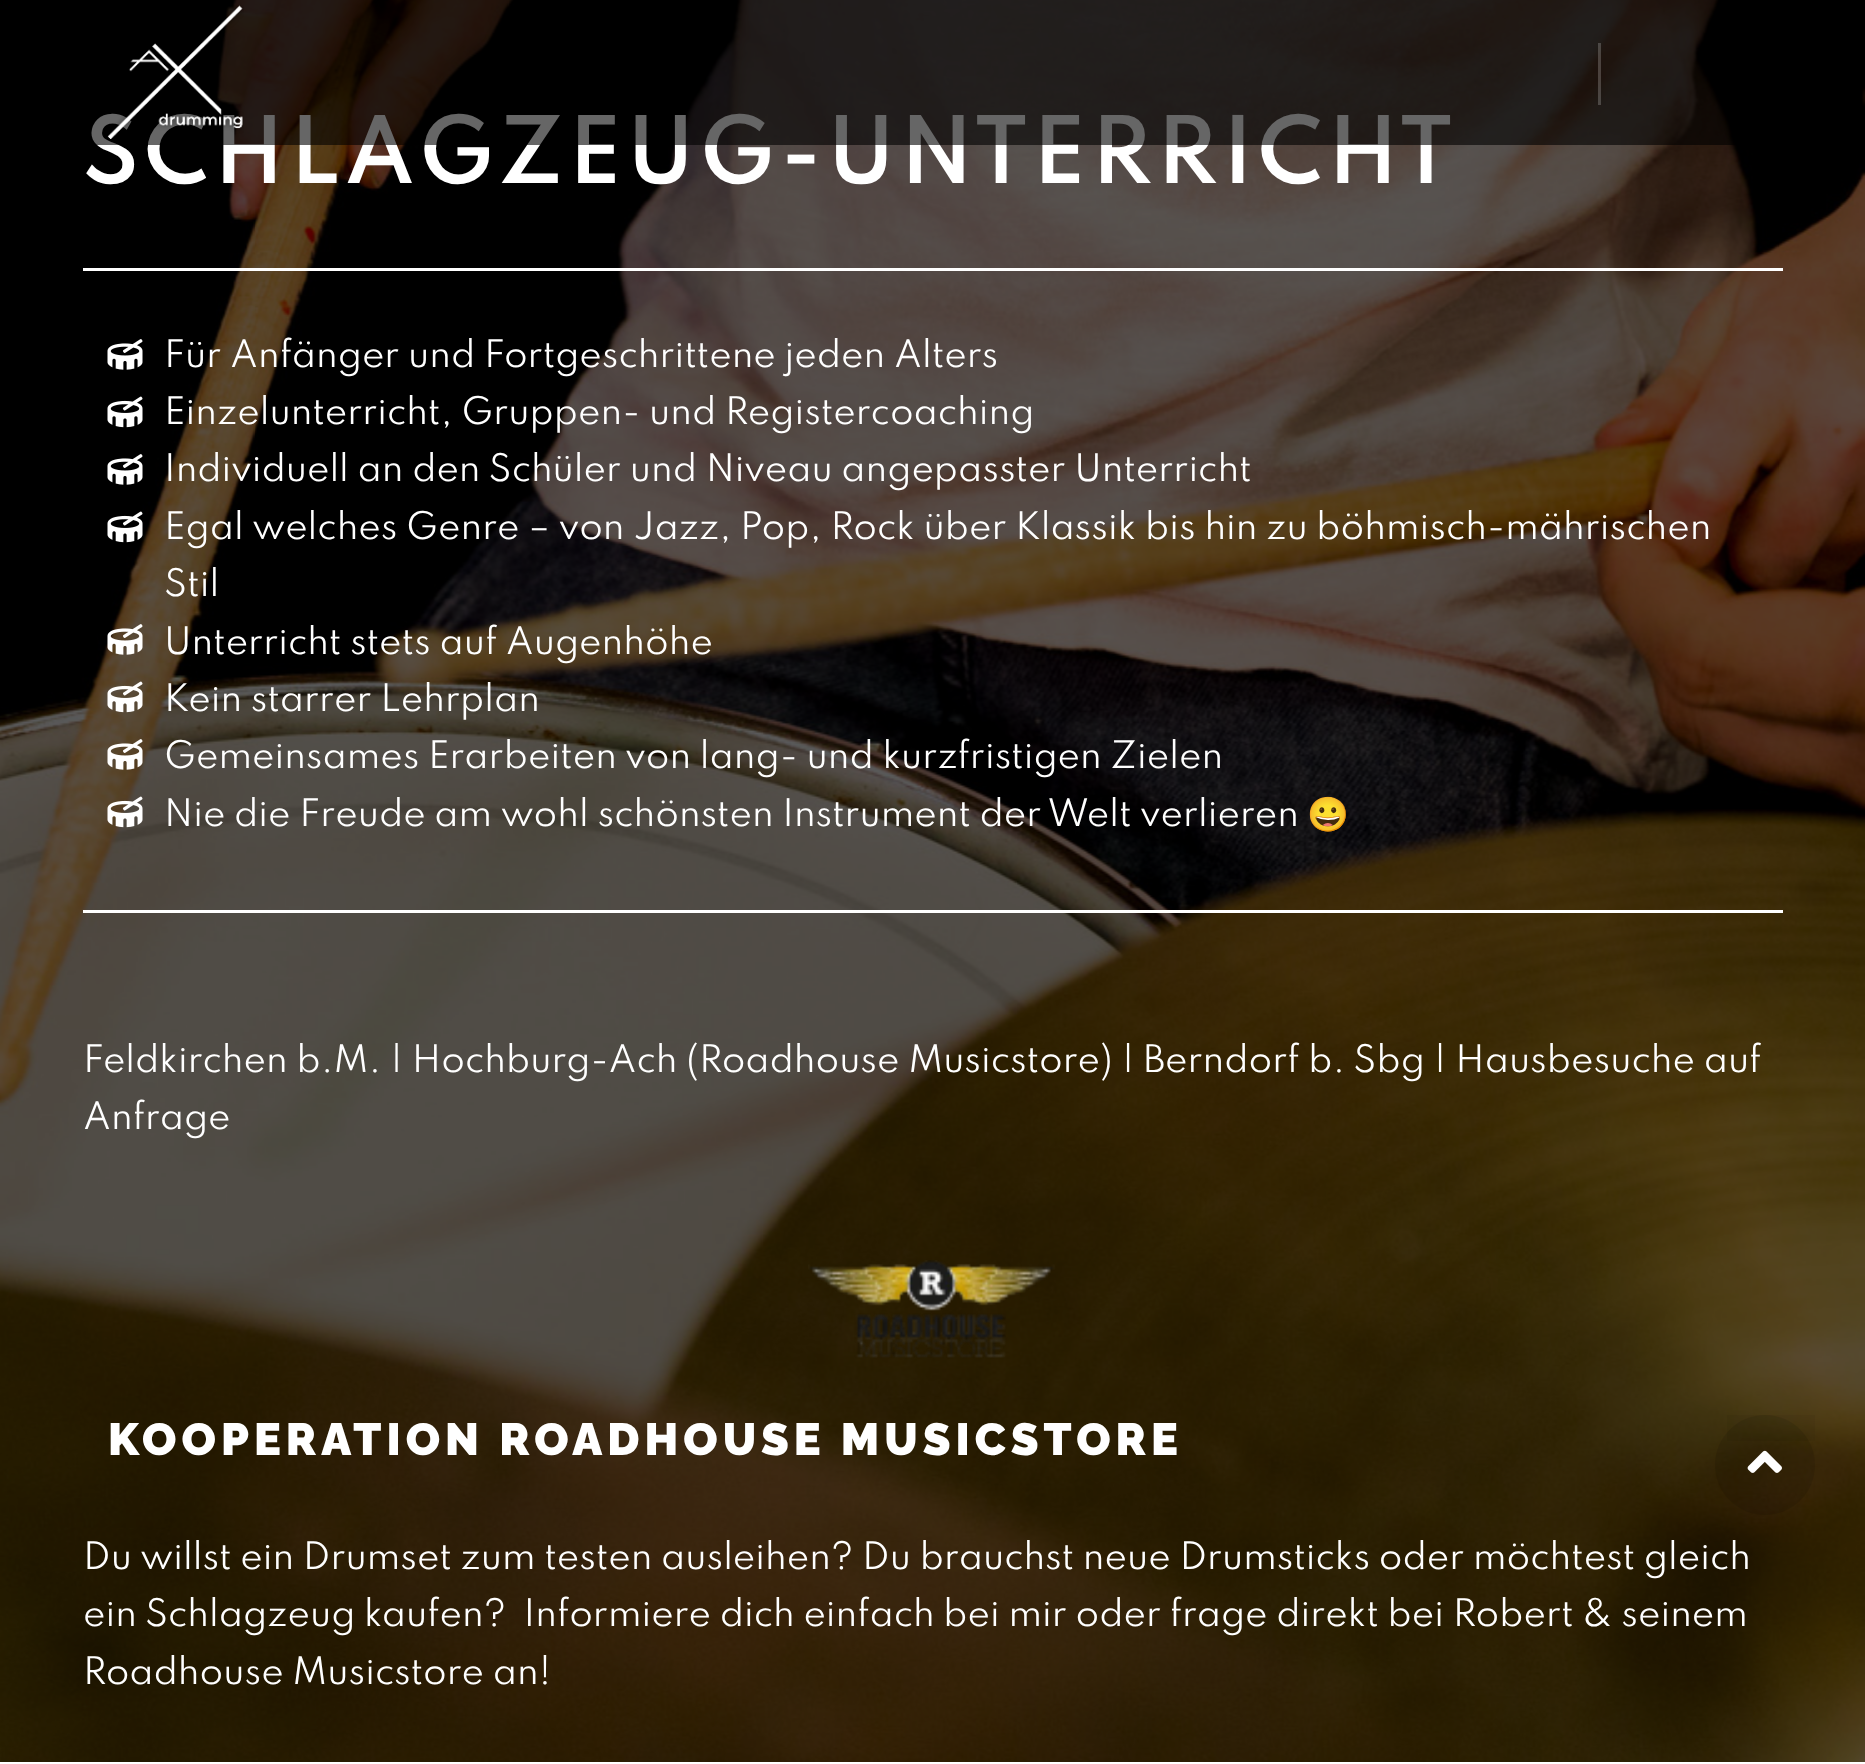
(async () => {
const canvas = document.querySelector("canvas")
canvas.width = 1865
canvas.height = 1764
const c = canvas.getContext("2d")
c.miterLimit = 4
c.fontKerning = "normal"
function T(s,x,y){c.fillText(s,x,y)}
function R(x,y,w,h){c.fillRect(x,y,w,h)}
async function I(src,x,y,w,h){const img=new Image();img.src=src;await img.decode();c.drawImage(img,x,y,w,h)}
c.fillStyle="#fff"
R(0,0,1865,1764)
await I("2.png",0,0,1865,1762)
c.letterSpacing="5px"
c.font="600 82.5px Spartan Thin"
T("SCHLAGZEUG-UNTERRICHT",83,183)
c.fillStyle="#00000099"
R(91,0,1774,145)
await I("1.png",107,5,137,134)
c.fillStyle="#ffffff33"
R(1598,43,3,62)
c.fillStyle="#fff"
R(83,268,1700,3)
await I("3.png",107,339,36,31)
c.letterSpacing="0px"
c.font="33.75px Spartan Thin"
T("Für Anfänger und Fortgeschrittene jeden Alters",164,367)
await I("4.png",107,396,36,32)
T("Einzelunterricht, Gruppen- und Registercoaching",164,424)
await I("3.png",107,454,36,31)
T("Individuell an den Schüler und Niveau angepasster Unterricht",164,481)
await I("5.png",107,511,36,32)
T("Egal welches Genre – von Jazz, Pop, Rock über Klassik bis hin zu böhmisch-mährischen",164,539)
T("Stil",164,596)
await I("6.png",107,624,36,31)
T("Unterricht stets auf Augenhöhe",164,654)
await I("7.png",107,681,36,32)
T("Kein starrer Lehrplan",164,711)
await I("8.png",107,739,36,31)
T("Gemeinsames Erarbeiten von lang- und kurzfristigen Zielen",164,768)
await I("9.png",107,796,36,32)
T("Nie die Freude am wohl schönsten Instrument der Welt verlieren",164,826)
c.font="33.75px Noto Color Emoji"
T("😀",1307,826)
R(83,910,1700,3)
c.font="33.75px Spartan Thin"
T("Feldkirchen b.M. | Hochburg-Ach (Roadhouse Musicstore) | Berndorf b. Sbg | Hausbesuche auf",83,1072)
T("Anfrage",83,1129)
await I("10.png",808,1260,247,98)
c.letterSpacing="5px"
c.font="900 45px Raleway"
T("KOOPERATION ROADHOUSE MUSICSTORE",108,1455)
c.letterSpacing="0px"
c.font="33.75px Spartan Thin"
T("Du willst ein Drumset zum testen ausleihen? Du brauchst neue Drumsticks oder möchtest gleich",83,1569)
T("ein Schlagzeug kaufen?  Informiere dich einfach bei mir oder frage direkt bei Robert & seinem",83,1626)
T("Roadhouse Musicstore an!",83,1684)
c.fillStyle="#0000001a"
c.beginPath()
c.arc(1765,1465,50,0,7)
c.fill()
c.fillStyle="#0000000a"
R(1727,1415,88,26)
await I("11.png",1747,1450,35,23)
})()
